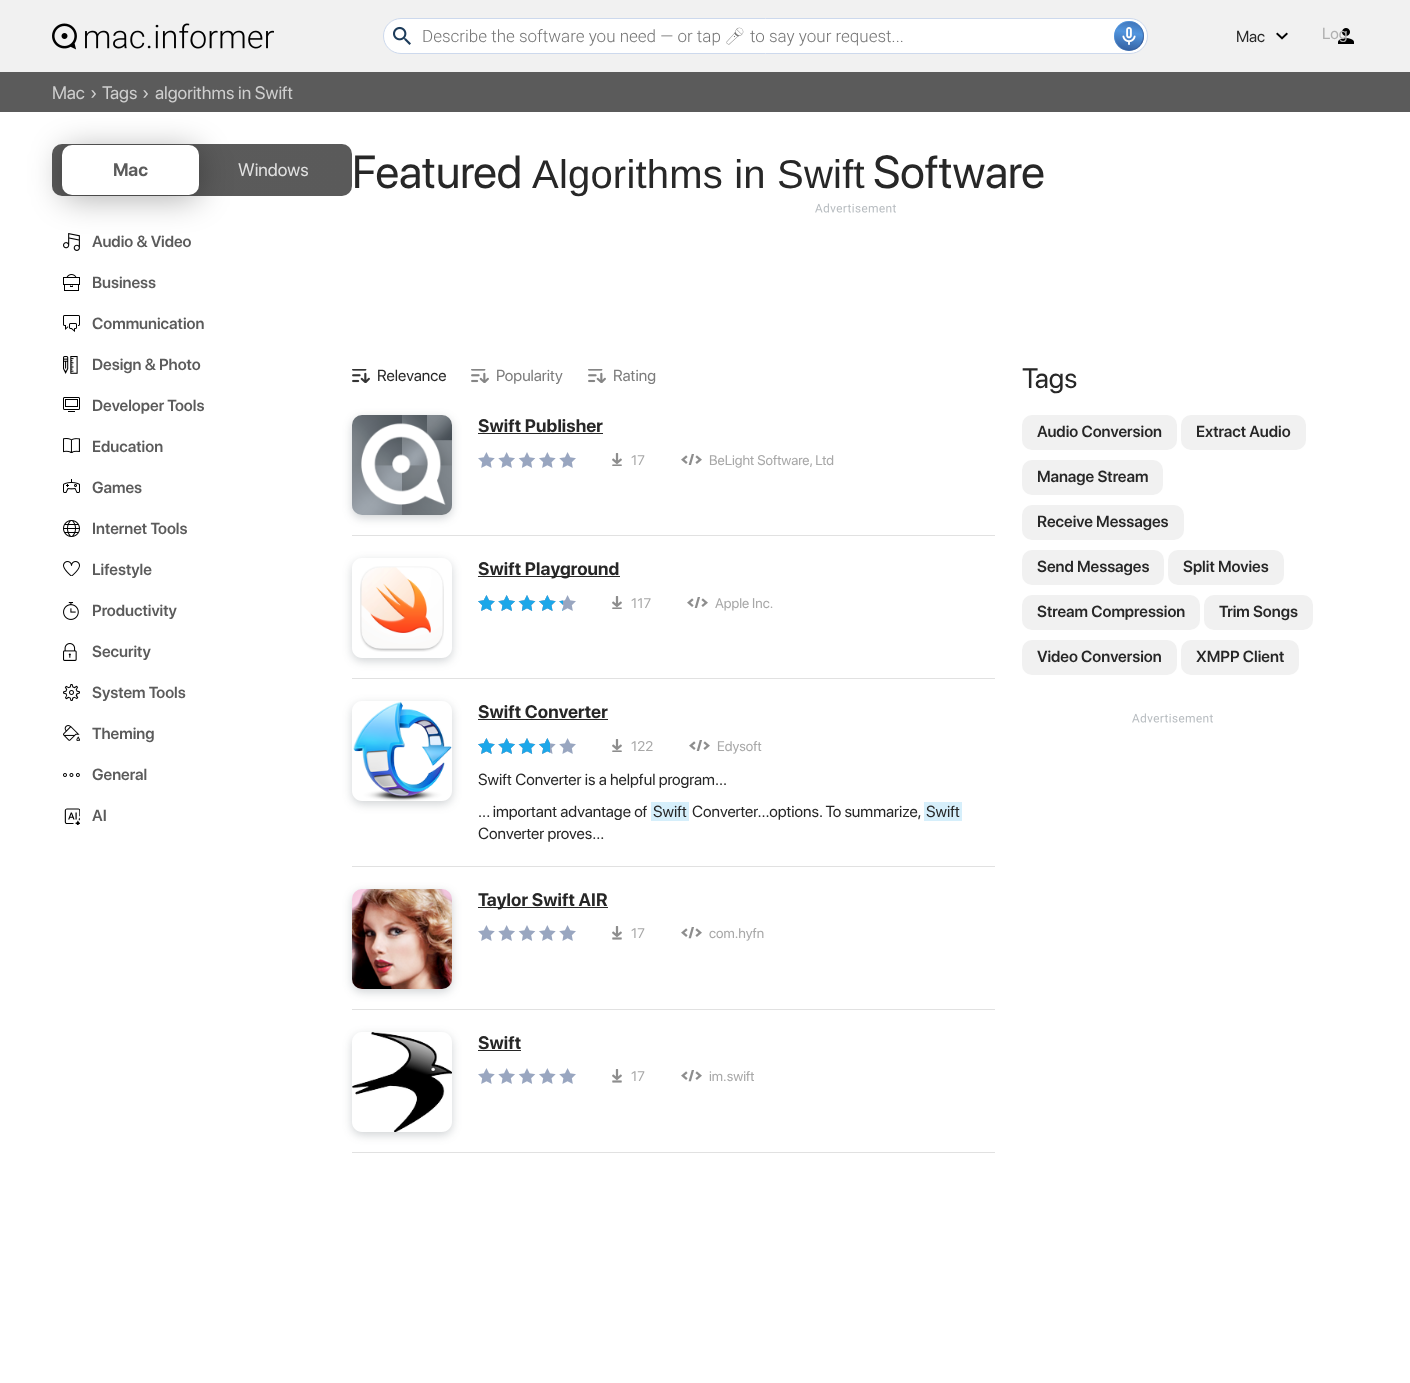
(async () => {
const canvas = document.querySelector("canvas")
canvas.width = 1410
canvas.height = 1383
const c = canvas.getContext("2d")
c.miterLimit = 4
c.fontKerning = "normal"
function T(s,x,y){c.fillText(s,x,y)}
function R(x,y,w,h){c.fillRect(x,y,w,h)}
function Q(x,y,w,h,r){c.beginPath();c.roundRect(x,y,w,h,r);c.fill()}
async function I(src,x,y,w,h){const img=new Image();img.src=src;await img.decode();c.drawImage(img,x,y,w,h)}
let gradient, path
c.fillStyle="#fff"
R(0,0,1410,1383)
c.fillStyle="#f1f1f1"
R(0,0,1410,72)
await I("1.png",52,23,222,27)
c.fillStyle="#fff"
c.beginPath()
c.roundRect(383.5,18.5,764,35,17.5)
c.fill()
c.strokeStyle="#cdd9ed"
c.stroke()
await I("2.png",393,26,18,19)
c.font="300 17px Roboto"
c.fillStyle="#757575"
T("Describe the software you need — or tap",422,42)
c.font="300 17px Noto Emoji"
T("🎤︎︎",724,42)
c.font="300 17px Roboto"
T("to say your request...",750,42)
gradient = c.createLinearGradient(1090,-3,1144,49)
gradient.addColorStop(.09,"#203973")
gradient.addColorStop(.55,"#5195de")
gradient.addColorStop(.92,"#203973")
c.fillStyle = gradient
c.beginPath()
c.arc(1129,36,15,0,7)
c.fill()
c.beginPath()
c.arc(1129,36,14.5,0,7)
c.strokeStyle="#5195de80"
c.stroke()
gradient = c.createLinearGradient(1122,64,1135,-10)
gradient.addColorStop(0,"#203973")
gradient.addColorStop(.43,"#5195de")
gradient.addColorStop(.87,"#203973")
c.fillStyle = gradient
c.beginPath()
c.arc(1129,36,14,0,7)
c.fill()
await I("3.png",1122,27,14,18)
c.font="16px SF Pro Display"
c.fillStyle="#272727"
T("Mac",1236,42)
await I("4.png",1276,32,12,8)
await I("5.png",1338,28,16,16)
c.fillStyle="#b0b0b0"
T("Log",1322,39)
c.fillStyle="#5b5b5b"
R(0,72,1410,40)
c.font="18px SF Pro Display"
c.fillStyle="#cecece"
T("Mac",52,99)
T("›",90,99)
gradient = c.createLinearGradient(353,175,51,165)
gradient.addColorStop(0,"#5a5a5a")
gradient.addColorStop(1,"#5b5b5b")
c.fillStyle = gradient
Q(52,144,300,52,10)
c.fillStyle="#0000004f"
c.filter="blur(16px)"
c.beginPath()
c.roundRect(62,149,137,50,10)
c.fill()
c.filter="none"
c.fillStyle="#cecece"
T("Tags",102,99)
T("›",142,99)
T("algorithms in Swift",155,99)
c.fillStyle="#fff"
Q(62,145,137,50,10)
c.font="bold 18px SF Pro Display"
c.fillStyle="#5b5b5b"
T("Mac",113,176)
c.font="18px SF Pro Display"
c.fillStyle="#e1e1e1"
T("Windows",238,176)
await I("6.png",63,233,17,18)
c.font="600 16px SF Pro Display"
c.fillStyle="#5b5b5b"
T("Audio & Video",92,247)
await I("7.png",63,274,17,17)
T("Business",92,288)
await I("8.png",63,315,17,17)
T("Communication",92,329)
await I("9.png",63,356,15,18)
T("Design & Photo",92,370)
await I("10.png",63,397,17,15)
T("Developer Tools",92,411)
await I("11.png",63,438,17,15)
T("Education",92,452)
await I("12.png",63,479,17,14)
T("Games",92,493)
await I("13.png",63,520,17,17)
T("Internet Tools",92,534)
await I("14.png",63,561,17,15)
T("Lifestyle",92,575)
await I("15.png",63,602,16,18)
T("Productivity",92,616)
await I("16.png",63,643,14,18)
T("Security",92,657)
await I("17.png",63,684,17,17)
T("System Tools",92,698)
await I("18.png",63,725,17,16)
T("Theming",92,739)
await I("19.png",63,773,17,4)
T("General",92,780)
await I("20.png",64,808,16,17)
T("AI",92,821)
c.font="46px SF Pro Display"
c.fillStyle="#272727"
T("Featured",352,188)
c.letterSpacing="0.2px"
c.font="40px Liberation Sans"
T("Algorithms in Swift",532,188)
c.letterSpacing="0px"
c.font="46px SF Pro Display"
T("Software",873,188)
await I("21.png",815,203,81,10)
await I("22.png",352,369,18,14)
c.font="16px SF Pro Display"
T("Relevance",377,381)
await I("23.png",471,369,18,14)
c.fillStyle="#7d7d7d"
T("Popularity",496,381)
await I("23.png",588,369,18,14)
T("Rating",613,381)
c.fillStyle="#e1e1e1"
R(352,535,643,1)
c.fillStyle="#3c484e3d"
c.filter="blur(5px)"
c.beginPath()
c.roundRect(352,418,100,100,10)
c.fill()
c.filter="none"
await I("24.png",352,415,100,100)
c.letterSpacing="0.1px"
c.font="bold 18px SF Pro Display"
c.fillStyle="#272727"
T("Swift Publisher",478,432)
R(478,433,125,1)
await I("25.png",478,452,98,16)
await I("26.png",612,453,10,13)
c.letterSpacing="0px"
c.font="14px SF Pro Display"
c.fillStyle="#a8a8a8"
T("17",631,465)
await I("27.png",681,454,21,11)
T("BeLight Software, Ltd",709,465)
c.fillStyle="#e1e1e1"
R(352,678,643,1)
c.save()
path = new Path2D("M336 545h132v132h-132zm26 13h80c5.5 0 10 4.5 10 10v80c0 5.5-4.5 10-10 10h-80c-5.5 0-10-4.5-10-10v-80c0-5.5 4.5-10 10-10z")
c.clip(path,"evenodd")
c.fillStyle="#3c484e3d"
c.filter="blur(5px)"
c.beginPath()
c.roundRect(352,561,100,100,10)
c.fill()
c.filter="none"
c.restore()
await I("28.png",360,566,84,86)
c.fillStyle="#272727"
R(478,576,142,1)
c.letterSpacing="0.1px"
c.font="bold 18px SF Pro Display"
T("Swift Playground",478,575)
await I("25.png",478,595,98,16)
await I("29.png",478,595,85,16)
await I("30.png",478,595,85,16)
await I("26.png",612,596,10,13)
c.letterSpacing="0px"
c.font="14px SF Pro Display"
c.fillStyle="#a8a8a8"
T("117",631,608)
await I("27.png",687,597,21,11)
T("Apple Inc.",715,608)
c.fillStyle="#e1e1e1"
R(352,866,643,1)
c.save()
path = new Path2D("M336 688h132v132h-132zm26 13h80c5.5 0 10 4.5 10 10v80c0 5.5-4.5 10-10 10h-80c-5.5 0-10-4.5-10-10v-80c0-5.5 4.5-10 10-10z")
c.clip(path,"evenodd")
c.fillStyle="#3c484e3d"
c.filter="blur(5px)"
c.beginPath()
c.roundRect(352,704,100,100,10)
c.fill()
c.filter="none"
c.restore()
await I("31.png",353,701,99,100)
c.letterSpacing="0.1px"
c.font="bold 18px SF Pro Display"
c.fillStyle="#272727"
T("Swift Converter",478,718)
R(478,719,130,1)
await I("25.png",478,738,98,16)
await I("32.png",478,738,72,16)
await I("33.png",478,738,72,16)
await I("26.png",612,739,10,13)
c.letterSpacing="0px"
c.font="14px SF Pro Display"
c.fillStyle="#a8a8a8"
T("122",631,751)
await I("27.png",689,740,21,11)
T("Edysoft",717,751)
c.font="16px SF Pro Display"
c.fillStyle="#272727"
T("Swift Converter is a helpful program...",478,785)
T("... important advantage of",478,817)
c.fillStyle="#d6effb"
R(651,802,38,19)
c.fillStyle="#272727"
T("Swift",653,817)
T("Converter...options. To summarize,",692,817)
c.fillStyle="#d6effb"
R(924,802,38,19)
c.fillStyle="#272727"
T("Swift",926,817)
T("Converter proves...",478,839)
c.fillStyle="#e1e1e1"
R(352,1009,643,1)
c.fillStyle="#3c484e3d"
c.filter="blur(5px)"
c.beginPath()
c.roundRect(352,892,100,100,10)
c.fill()
c.filter="none"
await I("34.png",352,889,100,100)
c.fillStyle="#272727"
R(478,907,130,1)
c.letterSpacing="0.1px"
c.font="bold 18px SF Pro Display"
T("Taylor Swift AIR",478,906)
await I("25.png",478,925,98,16)
await I("35.png",612,926,10,14)
c.letterSpacing="0px"
c.font="14px SF Pro Display"
c.fillStyle="#a8a8a8"
T("17",631,938)
await I("36.png",681,927,21,12)
T("com.hyfn",709,938)
c.fillStyle="#e1e1e1"
R(352,1152,643,1)
c.save()
path = new Path2D("M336 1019h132v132h-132zm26 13h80c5.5 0 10 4.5 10 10v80c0 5.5-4.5 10-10 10h-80c-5.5 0-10-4.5-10-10v-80c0-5.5 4.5-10 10-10z")
c.clip(path,"evenodd")
c.fillStyle="#3c484e3d"
c.filter="blur(5px)"
c.beginPath()
c.roundRect(352,1035,100,100,10)
c.fill()
c.filter="none"
c.restore()
await I("37.png",352,1032,100,100)
c.letterSpacing="0.1px"
c.font="bold 18px SF Pro Display"
c.fillStyle="#272727"
T("Swift",478,1049)
R(478,1050,43,1)
await I("25.png",478,1068,98,16)
await I("35.png",612,1069,10,14)
c.letterSpacing="0px"
c.font="14px SF Pro Display"
c.fillStyle="#a8a8a8"
T("17",631,1081)
await I("36.png",681,1070,21,12)
T("im.swift",709,1081)
c.letterSpacing="0.1px"
c.font="28px SF Pro Display"
c.fillStyle="#272727"
T("Tags",1022,388)
c.fillStyle="#f1f1f1"
Q(1022,415,155,35,10)
c.letterSpacing="0px"
c.font="600 16px SF Pro Display"
c.fillStyle="#272727"
T("Audio Conversion",1037,437)
c.fillStyle="#f1f1f1"
Q(1181,415,125,35,10)
c.fillStyle="#272727"
T("Extract Audio",1196,437)
c.fillStyle="#f1f1f1"
Q(1022,460,141,35,10)
c.fillStyle="#272727"
T("Manage Stream",1037,482)
c.fillStyle="#f1f1f1"
Q(1022,505,162,35,10)
c.fillStyle="#272727"
T("Receive Messages",1037,527)
c.fillStyle="#f1f1f1"
Q(1022,550,142,35,10)
c.fillStyle="#272727"
T("Send Messages",1037,572)
c.fillStyle="#f1f1f1"
Q(1168,550,116,35,10)
c.fillStyle="#272727"
T("Split Movies",1183,572)
c.fillStyle="#f1f1f1"
Q(1022,595,178,35,10)
c.fillStyle="#272727"
T("Stream Compression",1037,617)
c.fillStyle="#f1f1f1"
Q(1204,595,109,35,10)
c.fillStyle="#272727"
T("Trim Songs",1219,617)
c.fillStyle="#f1f1f1"
Q(1022,640,155,35,10)
c.fillStyle="#272727"
T("Video Conversion",1037,662)
c.fillStyle="#f1f1f1"
Q(1181,640,118,35,10)
c.fillStyle="#272727"
T("XMPP Client",1196,662)
await I("21.png",1132,713,81,10)
})()
